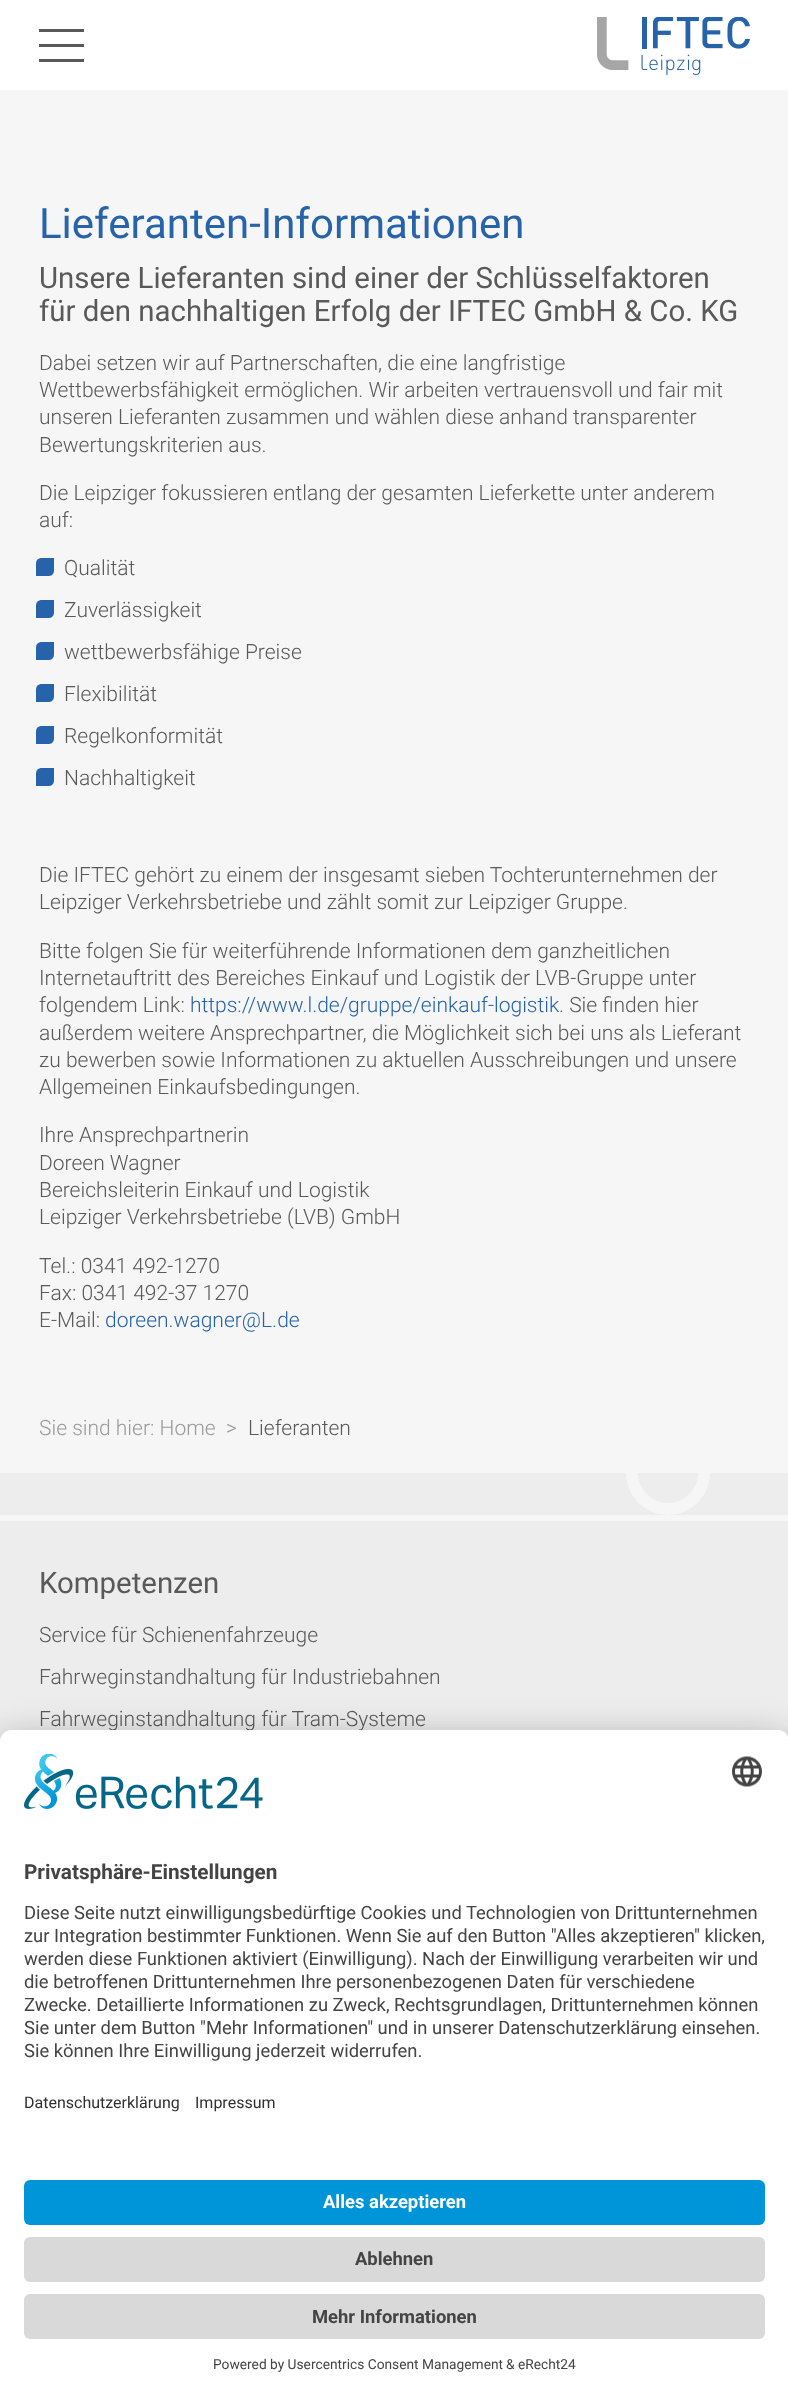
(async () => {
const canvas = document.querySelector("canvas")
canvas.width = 788
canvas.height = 2397
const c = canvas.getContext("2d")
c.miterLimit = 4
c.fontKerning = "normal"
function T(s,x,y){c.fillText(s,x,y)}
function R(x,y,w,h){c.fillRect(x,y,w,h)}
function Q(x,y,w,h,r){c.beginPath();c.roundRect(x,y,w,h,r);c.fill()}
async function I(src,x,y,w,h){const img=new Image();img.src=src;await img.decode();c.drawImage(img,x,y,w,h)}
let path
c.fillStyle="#f6f6f6"
R(0,0,788,2397)
c.fillStyle="#fff"
R(0,0,788,90)
c.fillStyle="#595959"
R(39,44,45,3)
R(39,29,45,3)
R(39,59,45,3)
await I("1.png",597,17,153,58)
c.font="42px Roboto"
c.fillStyle="#2663ab"
T("Lieferanten-Informationen",39,238)
c.font="29.4px Roboto"
c.fillStyle="#595959"
T("Unsere Lieferanten sind einer der Schlüsselfaktoren",39,288)
T("für den nachhaltigen Erfolg der IFTEC GmbH & Co. KG",39,321)
c.font="300 21px Roboto"
T("Dabei setzen wir auf Partnerschaften, die eine langfristige",39,370)
T("Wettbewerbsfähigkeit ermöglichen. Wir arbeiten vertrauensvoll und fair mit",39,397)
T("unseren Lieferanten zusammen und wählen diese anhand transparenter",39,424)
T("Bewertungskriterien aus.",39,452)
T("Die Leipziger fokussieren entlang der gesamten Lieferkette unter anderem",39,500)
T("auf:",39,527)
await I("2.png",36,558,18,18)
T("Qualität",64,575)
await I("2.png",36,600,18,18)
T("Zuverlässigkeit",64,617)
await I("2.png",36,642,18,18)
T("wettbewerbsfähige Preise",64,659)
await I("2.png",36,684,18,18)
T("Flexibilität",64,701)
await I("2.png",36,726,18,18)
T("Regelkonformität",64,743)
await I("2.png",36,768,18,18)
T("Nachhaltigkeit",64,785)
T("Die IFTEC gehört zu einem der insgesamt sieben Tochterunternehmen der",39,882)
T("Leipziger Verkehrsbetriebe und zählt somit zur Leipziger Gruppe.",39,909)
T("Bitte folgen Sie für weiterführende Informationen dem ganzheitlichen",39,958)
T("Internetauftritt des Bereiches Einkauf und Logistik der LVB-Gruppe unter",39,985)
T("folgendem Link:",39,1012)
c.fillStyle="#2663ab"
T("https://www.l.de/gruppe/einkauf-logistik",190,1012)
c.fillStyle="#595959"
T(". Sie finden hier",559,1012)
T("außerdem weitere Ansprechpartner, die Möglichkeit sich bei uns als Lieferant",39,1040)
T("zu bewerben sowie Informationen zu aktuellen Ausschreibungen und unsere",39,1067)
T("Allgemeinen Einkaufsbedingungen.",39,1094)
T("Ihre Ansprechpartnerin",39,1142)
T("Doreen Wagner",39,1170)
T("Bereichsleiterin Einkauf und Logistik",39,1197)
T("Leipziger Verkehrsbetriebe (LVB) GmbH",39,1224)
T("Tel.: 0341 492-1270",39,1273)
T("Fax: 0341 492-37 1270",39,1300)
T("E-Mail:",39,1327)
c.fillStyle="#2663ab"
T("doreen.wagner@L.de",105,1327)
c.fillStyle="#999"
T("Sie sind hier: Home",39,1435)
T(">",226,1435)
c.fillStyle="#595959"
T("Lieferanten",248,1435)
c.fillStyle="#ededed"
R(0,1473,788,269)
c.save()
c.beginPath()
c.rect(0,1473,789,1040)
c.clip()
c.beginPath()
c.arc(668,1473,36,0,7)
c.strokeStyle="#f6f6f6"
c.lineWidth=12
c.stroke()
c.restore()
c.fillStyle="#f6f6f6"
R(0,1515,788,6)
c.font="29.4px Roboto"
c.fillStyle="#595959"
T("Kompetenzen",39,1593)
c.font="300 21px Roboto"
T("Service für Schienenfahrzeuge",39,1642)
T("Fahrweginstandhaltung für Industriebahnen",39,1684)
T("Fahrweginstandhaltung für Tram-Systeme",39,1726)
c.fillStyle="#0000004d"
c.filter="blur(21px)"
c.beginPath()
c.roundRect(0,1760,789,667,12)
c.fill()
c.filter="none"
c.fillStyle="#00000038"
c.filter="blur(19.5px)"
c.beginPath()
c.roundRect(0,1737,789,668,12)
c.fill()
c.filter="none"
c.fillStyle="#fff"
path = new Path2D("M12 1730h765c6.5 0 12 5.5 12 12v655h-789v-655c0-6.5 5.5-12 12-12z")
c.fill(path)
path = new Path2D("M12 1730h765c6.5 0 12 5.5 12 12v420h-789v-420c0-6.5 5.5-12 12-12z")
c.fill(path)
await I("3.png",24,1754,239,55)
await I("4.png",732,1756,30,31)
c.font="bold 20.75px Roboto"
c.fillStyle="#444"
T("Privatsphäre-Einstellungen",24,1879)
c.font="18.4px Roboto"
T("Diese Seite nutzt einwilligungsbedürftige Cookies und Technologien von Drittunternehmen",24,1919)
T("zur Integration bestimmter Funktionen. Wenn Sie auf den Button \"Alles akzeptieren\" klicken,",24,1942)
T("werden diese Funktionen aktiviert (Einwilligung). Nach der Einwilligung verarbeiten wir und",24,1965)
T("die betroffenen Drittunternehmen Ihre personenbezogenen Daten für verschiedene",24,1988)
T("Zwecke. Detaillierte Informationen zu Zweck, Rechtsgrundlagen, Drittunternehmen können",24,2011)
T("Sie unter dem Button \"Mehr Informationen\" und in unserer Datenschutzerklärung einsehen.",24,2034)
T("Sie können Ihre Einwilligung jederzeit widerrufen.",24,2057)
c.font="16px Roboto"
c.fillStyle="#303030"
T("Datenschutzerklärung",24,2108)
T("Impressum",195,2108)
c.fillStyle="#0094d8"
Q(24,2180,741,45,6)
c.font="bold 18.4px Roboto"
c.fillStyle="#fff"
T("Alles akzeptieren",323,2208)
c.fillStyle="#d9d9d9"
Q(24,2237,741,45,6)
c.fillStyle="#444"
T("Ablehnen",355,2265)
c.fillStyle="#d9d9d9"
Q(24,2294,741,45,6)
c.fillStyle="#444"
T("Mehr Informationen",312,2323)
c.font="13.75px Roboto"
T("Powered by Usercentrics Consent Management",213,2369)
T("& eRecht24",506,2369)
})()
